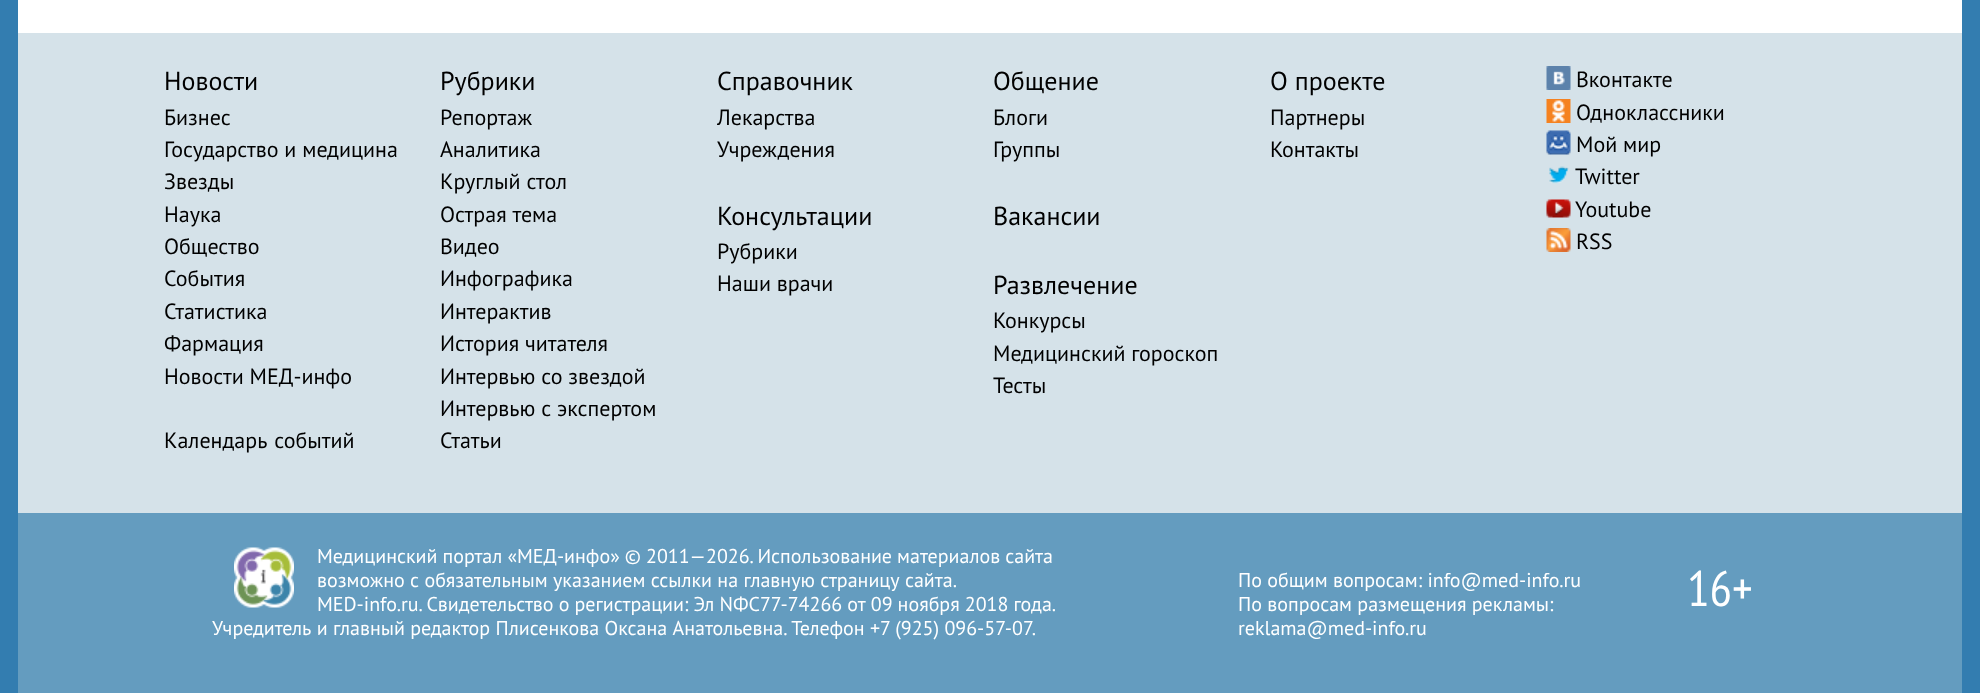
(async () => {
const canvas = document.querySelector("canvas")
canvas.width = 1980
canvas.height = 693
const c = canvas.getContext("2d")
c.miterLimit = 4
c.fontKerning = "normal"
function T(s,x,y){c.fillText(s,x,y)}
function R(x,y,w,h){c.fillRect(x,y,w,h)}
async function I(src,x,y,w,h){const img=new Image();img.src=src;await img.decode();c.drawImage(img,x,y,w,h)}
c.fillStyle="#337db0"
R(0,0,1980,693)
c.fillStyle="#fff"
R(18,0,1944,33)
c.fillStyle="#649cbf"
R(18,513,1944,180)
c.fillStyle="#d5e2e9"
R(18,33,1944,480)
c.font="26px PT Sans"
c.fillStyle="#000"
T("Новости",164,90)
c.font="22px PT Sans"
T("Бизнес",164,125)
T("Государство и медицина",164,157)
T("Звезды",164,189)
T("Наука",164,222)
T("Общество",164,254)
T("События",164,286)
T("Статистика",164,319)
T("Фармация",164,351)
T("Новости МЕД-инфо",164,384)
c.wordSpacing="1px"
T("Календарь событий",164,448)
c.wordSpacing="0px"
c.font="26px PT Sans"
T("Рубрики",440,90)
c.font="22px PT Sans"
T("Репортаж",440,125)
T("Аналитика",440,157)
T("Круглый стол",440,189)
T("Острая тема",440,222)
T("Видео",440,254)
T("Инфографика",440,286)
T("Интерактив",440,319)
T("История читателя",440,351)
T("Интервью со звездой",440,384)
T("Интервью с экспертом",440,416)
T("Статьи",440,448)
c.font="26px PT Sans"
T("Справочник",717,90)
c.font="22px PT Sans"
T("Лекарства",717,125)
T("Учреждения",717,157)
c.font="26px PT Sans"
T("Консультации",717,225)
c.font="22px PT Sans"
T("Рубрики",717,259)
T("Наши врачи",717,291)
c.font="26px PT Sans"
T("Общение",993,90)
c.font="22px PT Sans"
T("Блоги",993,125)
T("Группы",993,157)
c.font="26px PT Sans"
T("Вакансии",993,225)
T("Развлечение",993,294)
c.font="22px PT Sans"
T("Конкурсы",993,328)
T("Медицинский гороскоп",993,361)
T("Тесты",993,393)
c.font="26px PT Sans"
T("О проекте",1270,90)
c.font="22px PT Sans"
T("Партнеры",1270,125)
T("Контакты",1270,157)
await I("1.png",1546,66,25,24)
T("Вконтакте",1576,87)
await I("2.png",1546,99,25,24)
T("Одноклассники",1576,120)
await I("3.png",1546,130,25,25)
T("Мой мир",1576,152)
await I("4.png",1549,166,20,18)
T("Twitter",1575,184)
await I("5.png",1546,199,25,19)
T("Youtube",1575,217)
await I("6.png",1546,228,25,24)
T("RSS",1576,249)
await I("7.png",234,547,60,61)
c.wordSpacing="-0.25px"
c.font="20px PT Sans"
c.fillStyle="#fff"
T("Медицинский портал «МЕД-инфо» © 2011—2026. Использование материалов сайта",317,563)
c.wordSpacing="0px"
T("возможно с обязательным указанием ссылки на главную страницу сайта.",317,587)
c.wordSpacing="-0.25px"
T("MED-info.ru. Свидетельство о регистрации: Эл NФС77-74266 от 09 ноября 2018 года.",317,611)
c.wordSpacing="0px"
T("Учредитель и главный редактор Плисенкова Оксана Анатольевна. Телефон +7 (925) 096-57-07.",212,635)
T("По общим вопросам: info@med-info.ru",1238,587)
T("По вопросам размещения рекламы:",1238,611)
T("reklama@med-info.ru",1238,635)
c.font="50px PT Sans Narrow"
T("16+",1687,606)
})()
